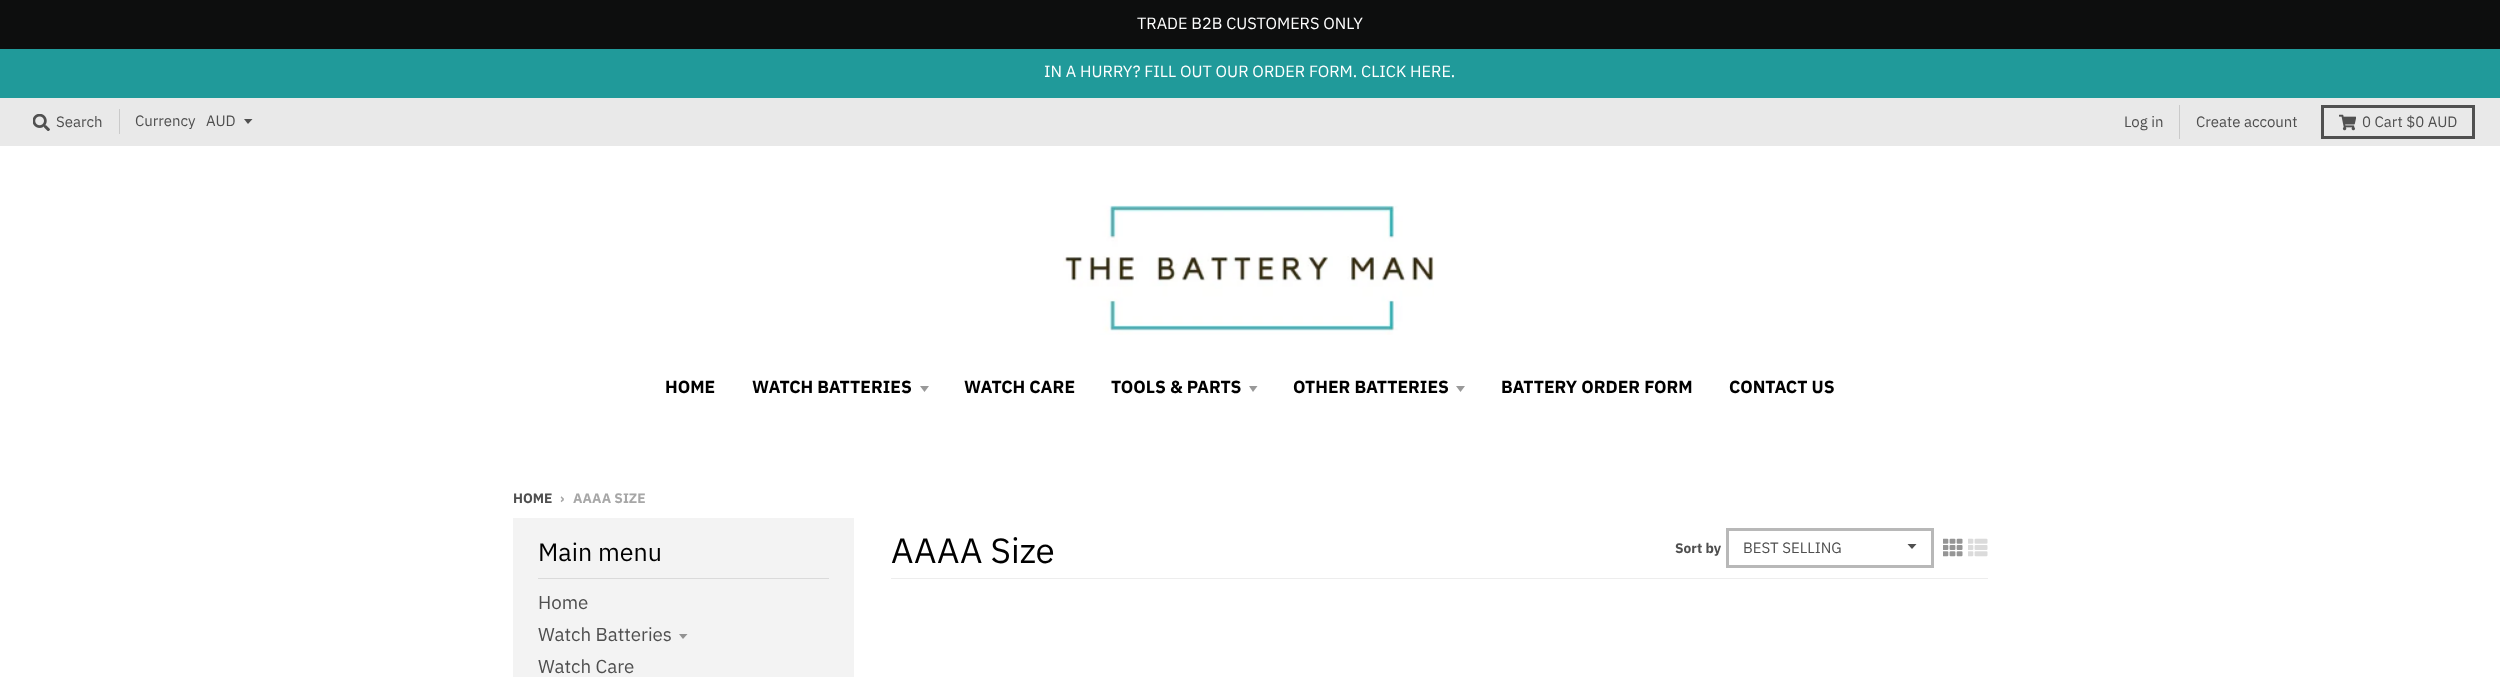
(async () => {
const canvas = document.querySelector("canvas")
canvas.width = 2500
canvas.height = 677
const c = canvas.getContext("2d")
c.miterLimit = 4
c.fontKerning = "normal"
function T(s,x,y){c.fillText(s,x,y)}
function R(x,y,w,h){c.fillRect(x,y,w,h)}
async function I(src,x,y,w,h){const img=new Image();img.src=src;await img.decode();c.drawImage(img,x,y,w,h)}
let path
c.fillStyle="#fff"
R(0,0,2500,677)
c.fillStyle="#0d0e0e"
R(0,0,2500,49)
c.font="16.25px IBM Plex Sans"
c.fillStyle="#fff"
T("TRADE B2B CUSTOMERS ONLY",1137,29)
c.fillStyle="#209a9a"
R(0,49,2500,49)
c.fillStyle="#fff"
T("IN A HURRY? FILL OUT OUR ORDER FORM. CLICK HERE.",1044,77)
c.fillStyle="#e9e9e9"
R(0,98,2500,48)
await I("1.png",33,114,17,17)
c.font="15px IBM Plex Sans"
c.fillStyle="#4f4f4f"
T("Search",56,127)
c.fillStyle="#cacaca"
R(119,109,1,25)
c.fillStyle="#4f4f4f"
T("Currency",135,126)
c.fillStyle="#505050"
path = new Path2D("M244 119l4 5l4.5-5z")
c.fill(path)
c.fillStyle="#4f4f4f"
T("AUD",206,126)
c.fillStyle="#cacaca"
R(2179,105,1,34)
c.fillStyle="#4f4f4f"
T("Log in",2124,127)
T("Create account",2196,127)
c.strokeStyle="#505050"
c.lineWidth=3
c.strokeRect(2322.5,106.5,151,31)
await I("2.png",2339,114,17,17)
T("0 Cart $0 AUD",2362,127)
await I("3.png",1063,205,371,130)
c.font="bold 17.5px IBM Plex Sans"
c.fillStyle="#000"
T("HOME",665,393)
T("WATCH BATTERIES",752,393)
c.fillStyle="#999"
path = new Path2D("M920 386l4.5 6l4.5-6z")
c.fill(path)
c.fillStyle="#000"
T("WATCH CARE",964,393)
T("TOOLS & PARTS",1111,393)
c.fillStyle="#999"
path = new Path2D("M1249 386l4 6l4.5-6z")
c.fill(path)
c.fillStyle="#000"
T("OTHER BATTERIES",1293,393)
c.fillStyle="#999"
path = new Path2D("M1456 386l4.5 6l4.5-6z")
c.fill(path)
c.fillStyle="#000"
T("BATTERY ORDER FORM",1501,393)
T("CONTACT US",1729,393)
c.font="bold 13.75px IBM Plex Sans"
c.fillStyle="#4f4f4f"
T("HOME",513,503)
c.fillStyle="#a7a7a7"
T("›",560,503)
T("AAAA SIZE",573,503)
c.fillStyle="#f3f3f3"
R(513,518,341,159)
c.fillStyle="#dadada"
R(538,578,291,1)
c.font="25px IBM Plex Sans"
c.fillStyle="#000"
T("Main menu",538,561)
c.font="18.75px IBM Plex Sans"
c.fillStyle="#4f4f4f"
T("Home",538,609)
T("Watch Batteries",538,641)
c.fillStyle="#929292"
path = new Path2D("M679 634l4 5l4.5-5z")
c.fill(path)
c.fillStyle="#4f4f4f"
T("Watch Care",538,673)
c.fillStyle="#ededed"
R(891,578,1097,1)
c.font="35px IBM Plex Sans"
c.fillStyle="#000"
T("AAAA Size",891,563)
c.font="bold 13.75px IBM Plex Sans"
c.fillStyle="#4f4f4f"
T("Sort by",1675,553)
path = new Path2D("M1907.5 544l4.5 5l4.5-5z")
c.fill(path)
c.strokeStyle="#b8b8b8"
c.strokeRect(1727.5,529.5,205,37)
c.font="15px IBM Plex Sans"
T("BEST SELLING",1743,553)
await I("4.png",1943,538,20,19)
await I("5.png",1968,538,20,19)
})()
